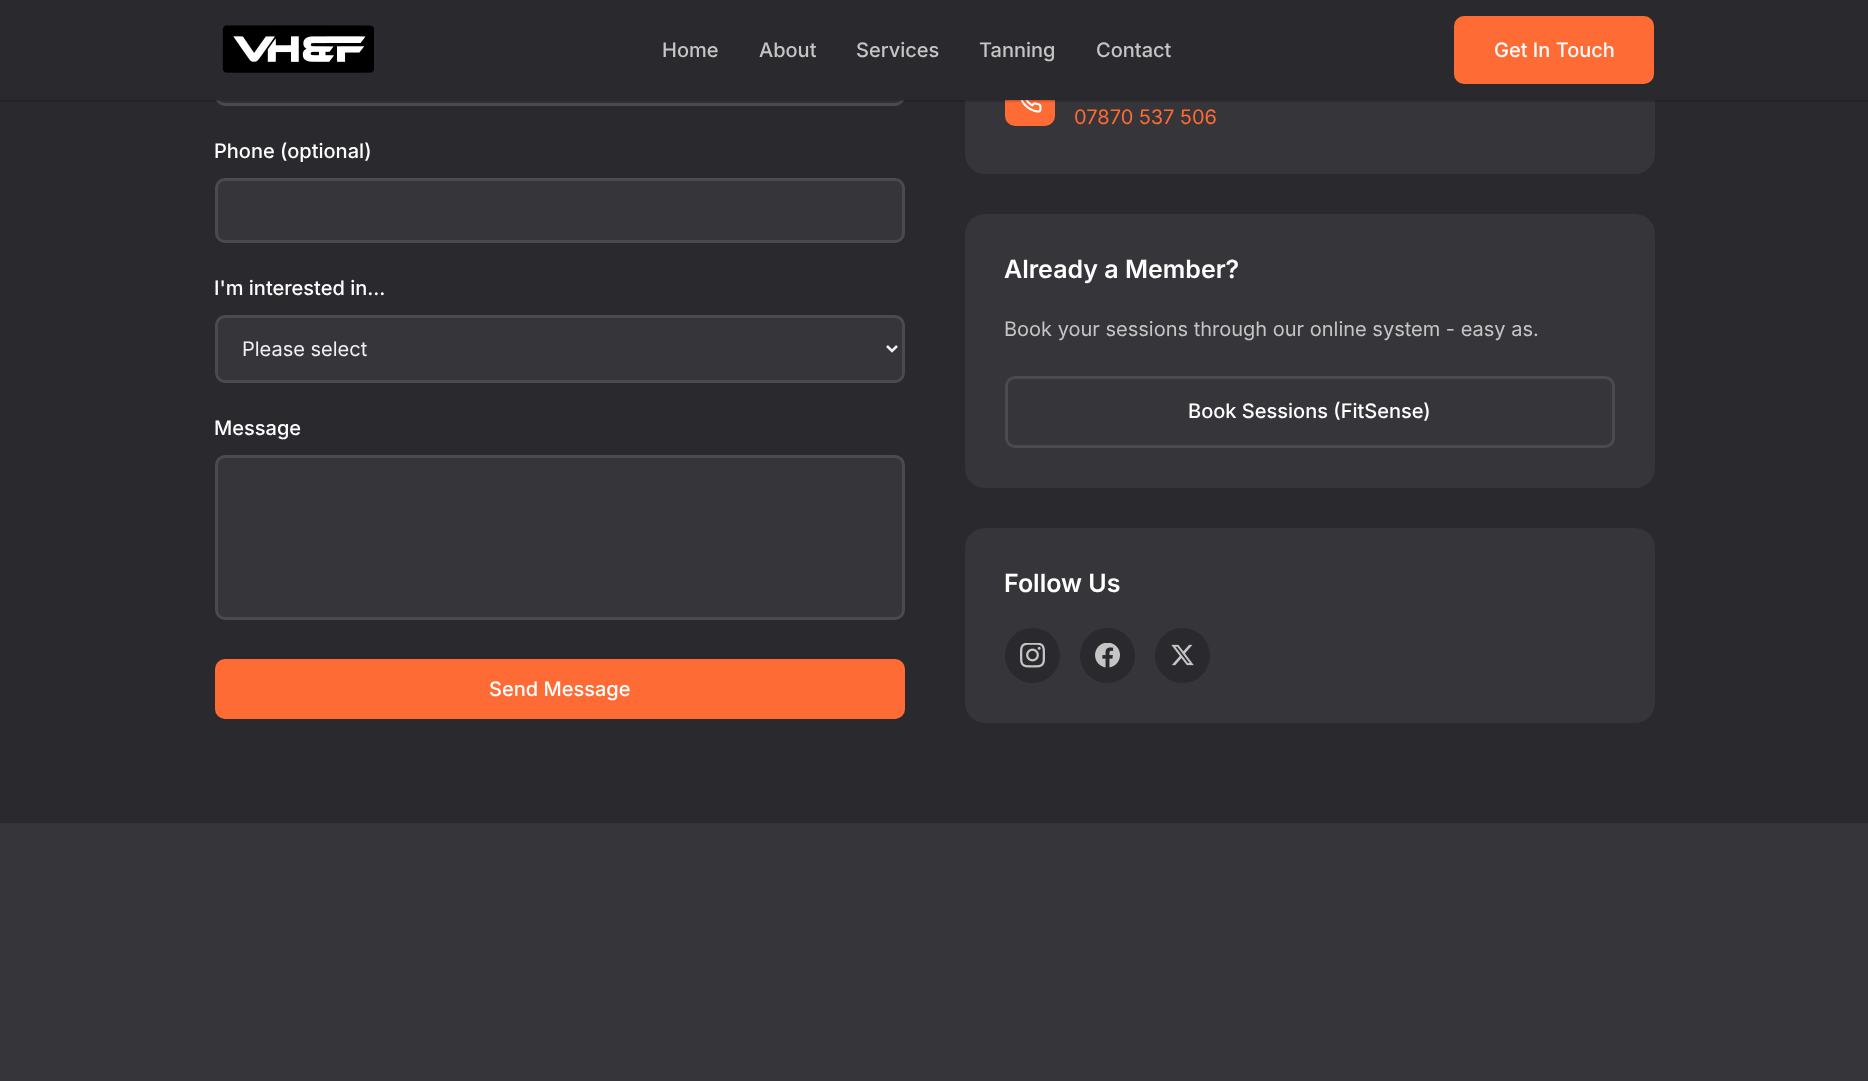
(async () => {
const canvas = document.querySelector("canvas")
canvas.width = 1868
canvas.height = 1081
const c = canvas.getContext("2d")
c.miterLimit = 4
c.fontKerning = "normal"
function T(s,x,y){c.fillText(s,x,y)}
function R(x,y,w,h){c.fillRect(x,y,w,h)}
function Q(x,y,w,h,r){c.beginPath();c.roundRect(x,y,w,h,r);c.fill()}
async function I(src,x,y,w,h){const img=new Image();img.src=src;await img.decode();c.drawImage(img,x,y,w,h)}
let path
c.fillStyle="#2a2a2e"
R(0,0,1868,1081)
c.fillStyle="#35353a"
c.beginPath()
c.roundRect(216.5,42.5,687,62,8.5)
c.fill()
c.strokeStyle="#4a4a4f"
c.lineWidth=3
c.stroke()
Q(965,-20,690,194,20)
c.fillStyle="#ff6b35"
Q(1005,76,50,50,10)
await I("2.png",1020,100,22,13)
c.fillStyle="#0000004d"
c.filter="blur(1px)"
c.beginPath()
c.rect(0,1,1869,100)
c.fill()
c.filter="none"
c.fillStyle="#2a2a2e"
R(0,0,1868,100)
await I("1.png",222,25,152,48)
c.font="500 20px Inter"
c.fillStyle="#c5c5c5"
T("Home",662,57)
T("About",759,57)
T("Services",856,57)
T("Tanning",979,57)
T("Contact",1096,57)
c.fillStyle="#ff6b35"
Q(1454,16,200,68,10)
c.fillStyle="#fff"
T("Get In Touch",1494,57)
T("Phone (optional)",214,158)
c.fillStyle="#35353a"
c.beginPath()
c.roundRect(216.5,179.5,687,62,8.5)
c.fill()
c.stroke()
c.fillStyle="#fff"
T("I'm interested in...",214,295)
c.fillStyle="#35353a"
c.beginPath()
c.roundRect(216.5,316.5,687,65,8.5)
c.fill()
c.stroke()
path = new Path2D("M887 346l5 5l5-5")
c.strokeStyle="#f0f0f0"
c.lineWidth=2.5
c.stroke(path)
c.font="20px Inter"
c.fillStyle="#f0f0f0"
T("Please select",242,356)
c.font="500 20px Inter"
c.fillStyle="#fff"
T("Message",214,435)
c.fillStyle="#35353a"
c.beginPath()
c.roundRect(216.5,456.5,687,162,8.5)
c.fill()
c.strokeStyle="#4a4a4f"
c.lineWidth=3
c.stroke()
c.fillStyle="#ff6b35"
Q(215,659,690,60,10)
c.fillStyle="#fff"
T("Send Message",489,696)
c.font="20px Inter"
c.fillStyle="#ff6b35"
T("07870 537 506",1074,124)
c.fillStyle="#35353a"
Q(965,214,690,274,20)
c.font="600 25px Inter"
c.fillStyle="#fff"
T("Already a Member?",1004,278)
c.font="20px Inter"
c.fillStyle="#c5c5c5"
T("Book your sessions through our online system - easy as.",1004,336)
c.beginPath()
c.roundRect(1006.5,377.5,607,69,8.5)
c.stroke()
c.font="500 20px Inter"
c.fillStyle="#fff"
T("Book Sessions (FitSense)",1188,418)
c.fillStyle="#35353a"
Q(965,528,690,195,20)
c.font="600 25px Inter"
c.fillStyle="#fff"
T("Follow Us",1004,592)
c.fillStyle="#2a2a2e"
c.beginPath()
c.arc(1032.5,655.5,27.5,0,7)
c.fill()
await I("3.png",1020,643,25,25)
c.beginPath()
c.arc(1107.5,655.5,27.5,0,7)
c.fill()
await I("4.png",1095,643,25,25)
c.beginPath()
c.arc(1182.5,655.5,27.5,0,7)
c.fill()
await I("5.png",1171,644,23,22)
c.fillStyle="#35353a"
R(0,823,1868,258)
})()
